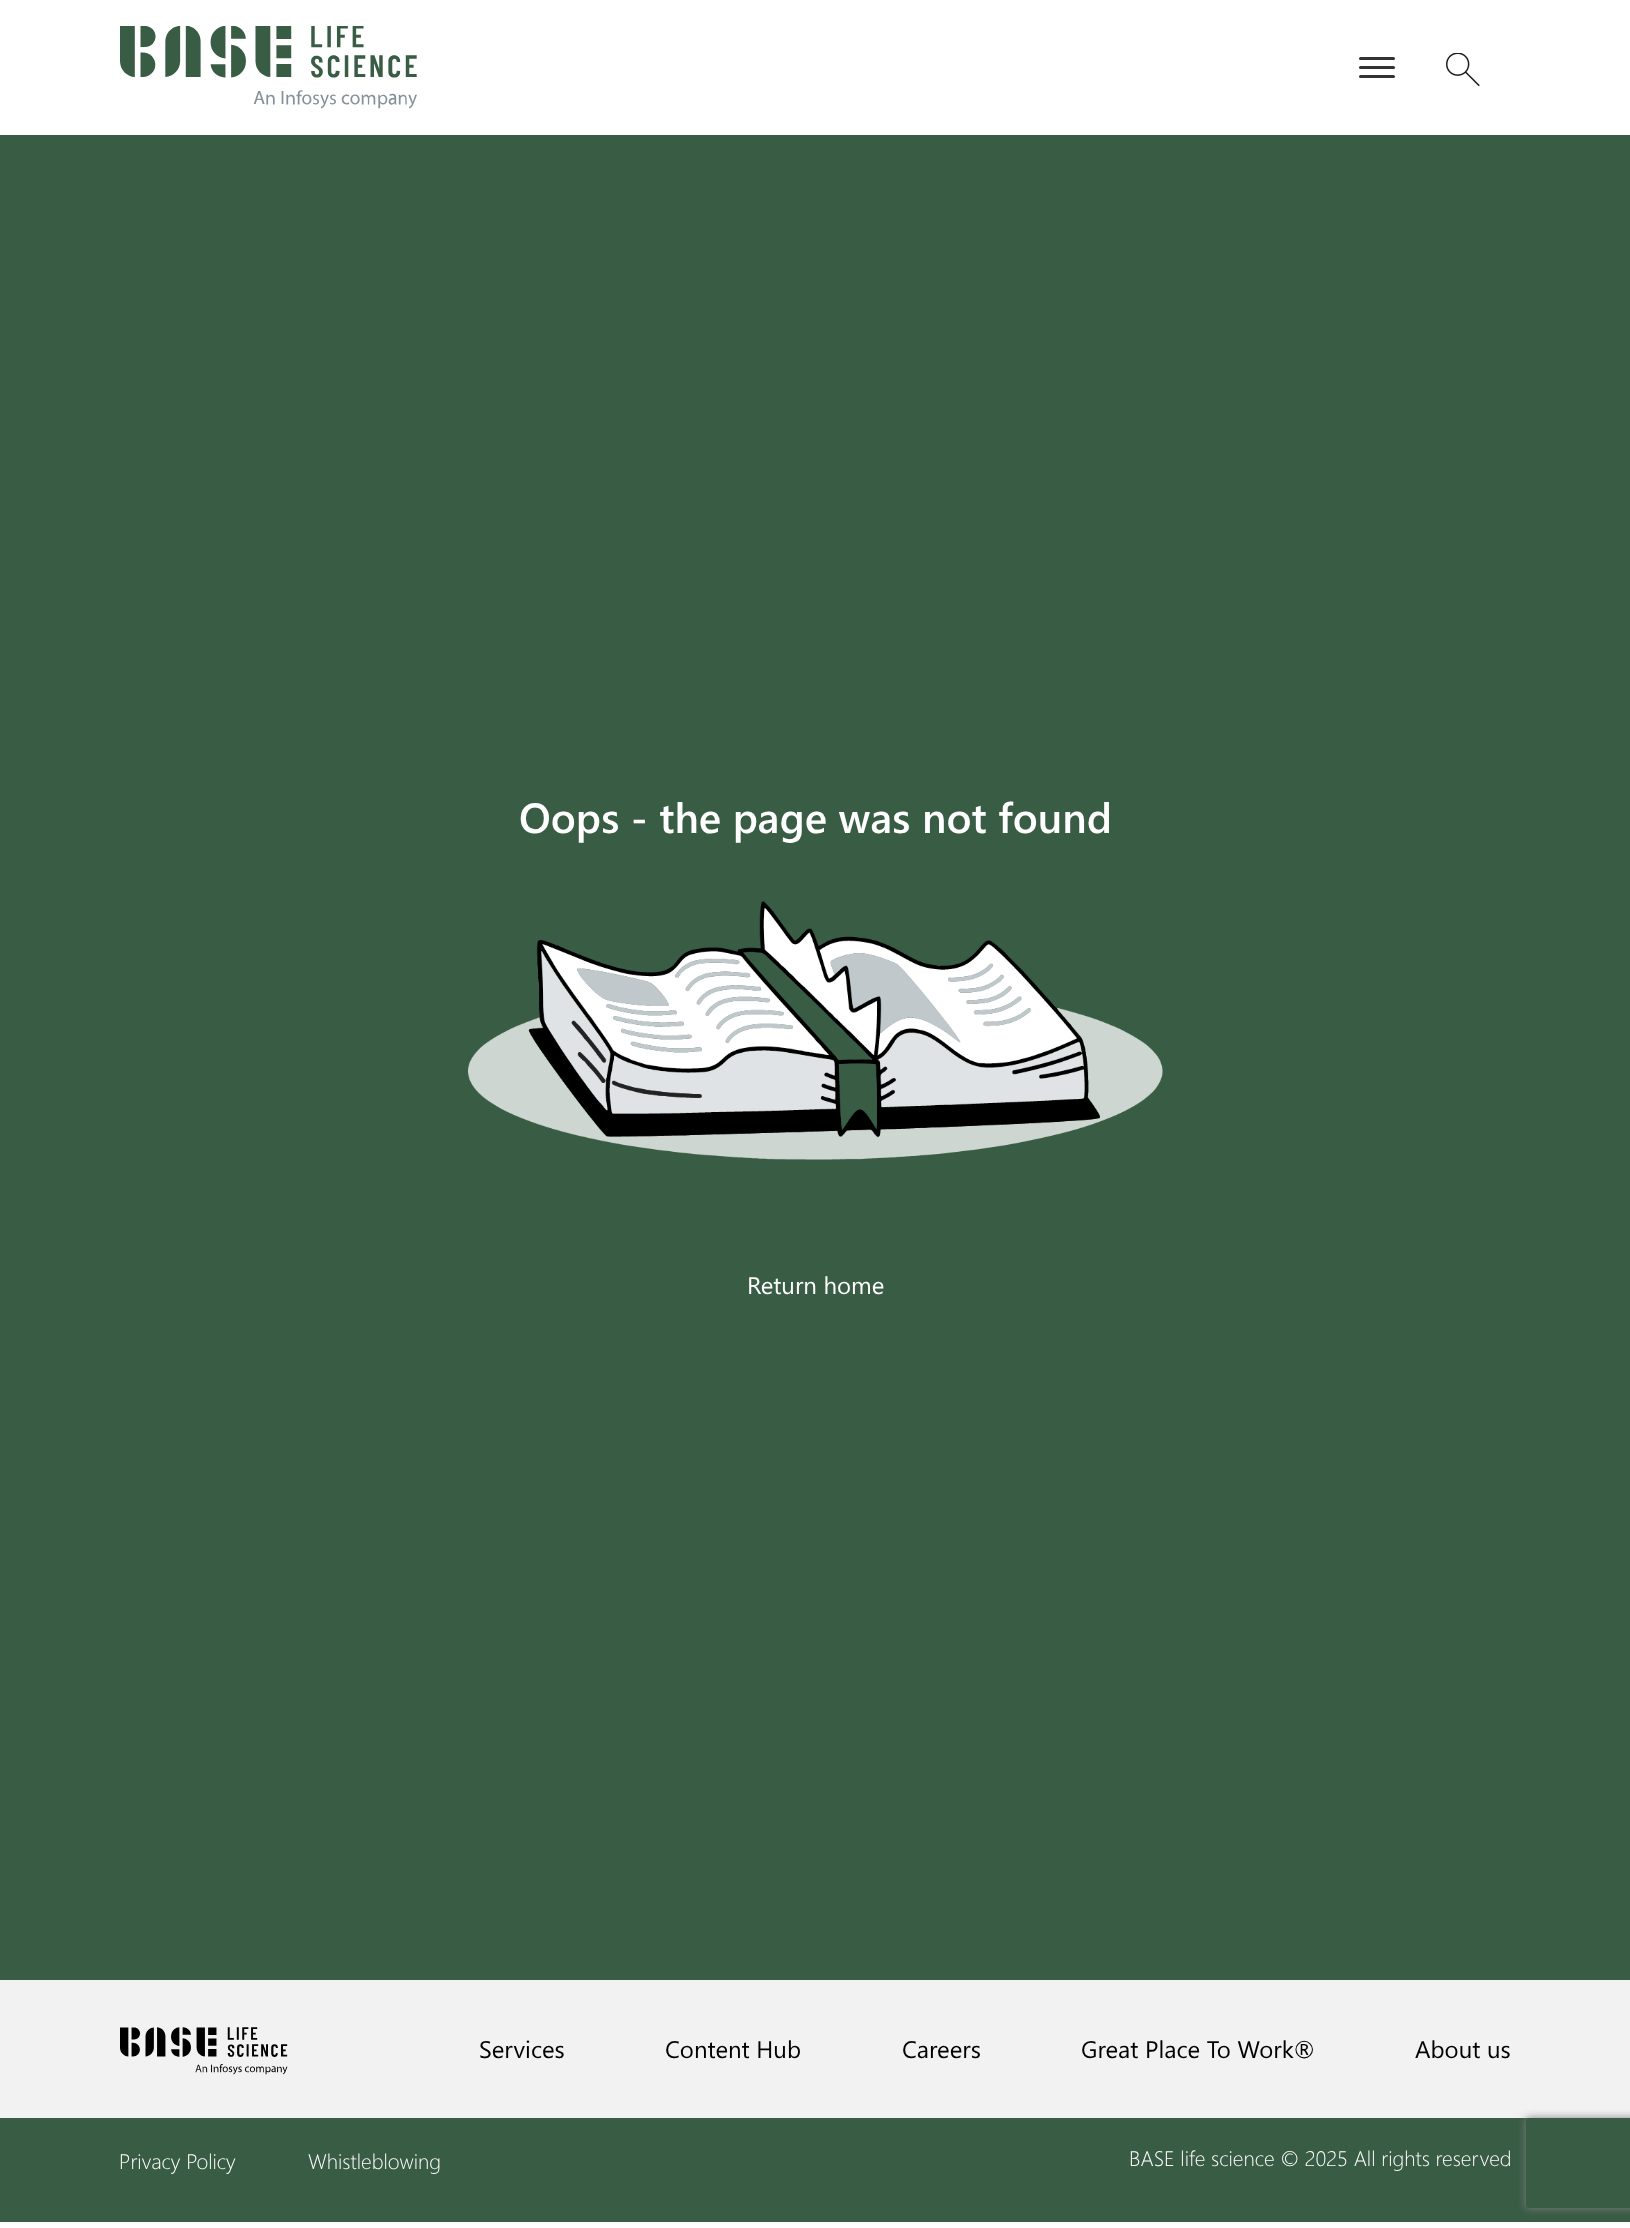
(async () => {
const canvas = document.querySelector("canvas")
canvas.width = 1630
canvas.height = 2228
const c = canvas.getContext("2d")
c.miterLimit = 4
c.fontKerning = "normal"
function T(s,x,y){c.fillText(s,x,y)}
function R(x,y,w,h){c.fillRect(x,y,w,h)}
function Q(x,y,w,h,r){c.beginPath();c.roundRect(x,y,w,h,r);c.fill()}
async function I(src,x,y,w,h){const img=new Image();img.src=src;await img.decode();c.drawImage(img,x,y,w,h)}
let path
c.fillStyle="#fff"
R(0,0,1630,2228)
await I("1.png",120,26,297,83)
c.fillStyle="#333"
Q(1359,57,36,3,1.5)
Q(1359,66,36,3,1.5)
Q(1359,75,36,3,1.5)
await I("2.png",1446,53,34,34)
c.fillStyle="#395c45"
R(0,135,1630,1845)
c.font="600 42px Segoe UI"
c.fillStyle="#fff"
T("Oops - the page was not found",519,833)
await I("3.png",468,901,695,259)
c.font="24px Segoe UI"
T("Return home",747,1294)
c.fillStyle="#f2f2f2"
R(0,1980,1630,138)
await I("4.png",120,2027,168,48)
c.fillStyle="#000"
T("Services",479,2058)
T("Content Hub",665,2058)
T("Careers",902,2058)
T("Great Place To Work®",1081,2058)
T("About us",1415,2058)
c.fillStyle="#395c45"
R(0,2118,1630,104)
c.font="300 21px Segoe UI"
c.fillStyle="#fff"
T("Privacy Policy",119,2169)
T("Whistleblowing",308,2169)
T("BASE life science © 2025 All rights reserved",1129,2166)
c.save()
path = new Path2D("M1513 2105h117v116h-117zm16 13h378c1.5 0 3 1.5 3 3v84c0 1.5-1.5 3-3 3h-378c-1.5 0-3-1.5-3-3v-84c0-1.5 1.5-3 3-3z")
c.clip(path,"evenodd")
c.fillStyle="#808080"
c.filter="blur(4px)"
c.beginPath()
c.roundRect(1526,2118,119,90,3)
c.fill()
c.filter="none"
c.restore()
})()
